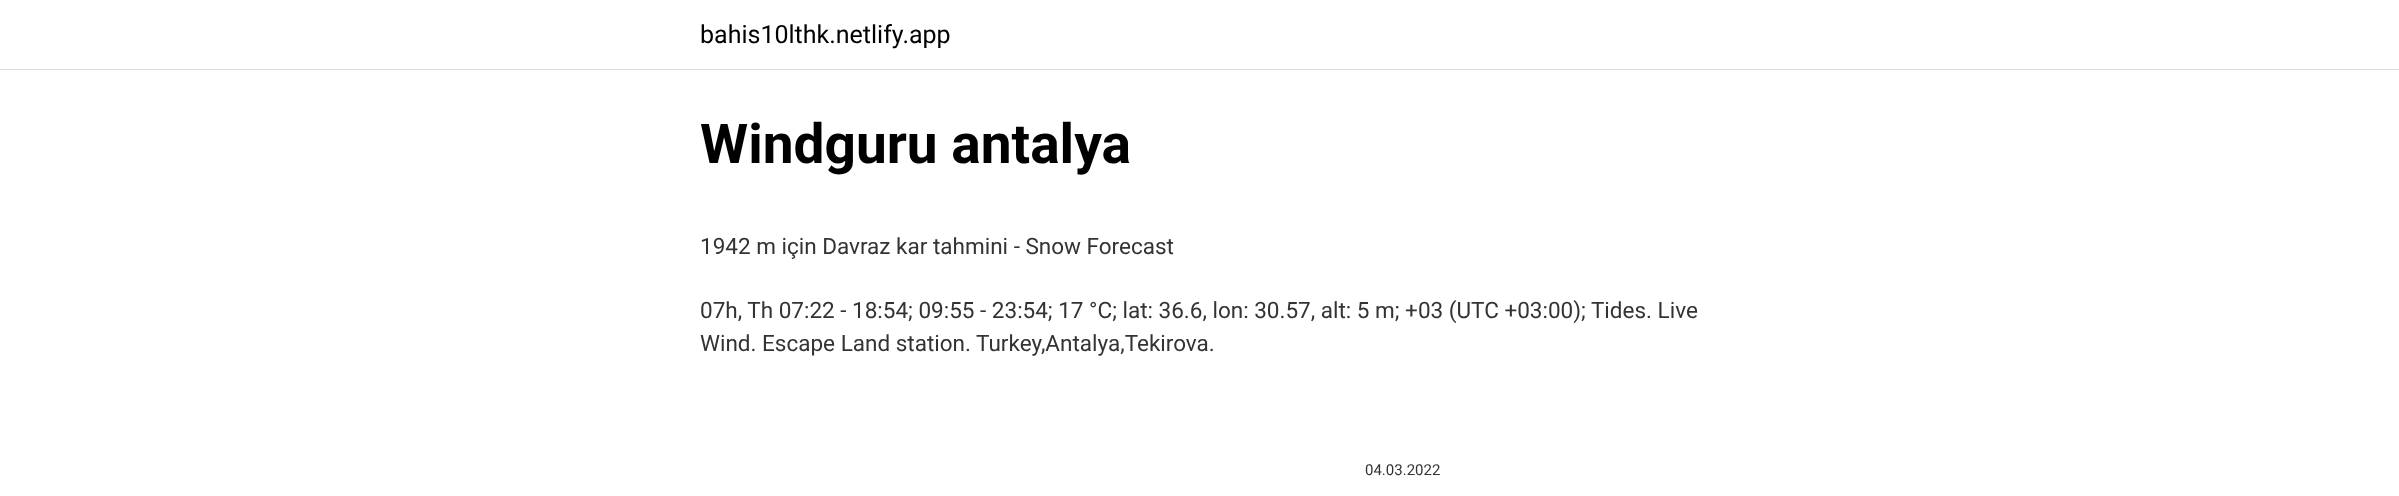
(async () => {
const canvas = document.querySelector("canvas")
canvas.width = 2399
canvas.height = 496
const c = canvas.getContext("2d")
c.miterLimit = 4
c.fontKerning = "normal"
function T(s,x,y){c.fillText(s,x,y)}
function R(x,y,w,h){c.fillRect(x,y,w,h)}
c.fillStyle="#fff"
R(0,0,2399,496)
c.fillStyle="#dbdbdb"
R(0,69,2399,1)
c.font="25px Roboto"
c.fillStyle="#000"
T("bahis10lthk.netlify.app",700,43)
c.font="bold 55px Roboto"
T("Windguru antalya",700,163)
c.font="22.5px Roboto"
c.fillStyle="#333"
T("1942 m için Davraz kar tahmini - Snow Forecast",700,254)
T("07h, Th 07:22 - 18:54; 09:55 - 23:54; 17 °C; lat: 36.6, lon: 30.57, alt: 5 m; +03 (UTC +03:00); Tides. Live",700,318)
T("Wind. Escape Land station. Turkey,Antalya,Tekirova.",700,351)
c.font="15px Roboto"
T("04.03.2022",1365,475)
})()
